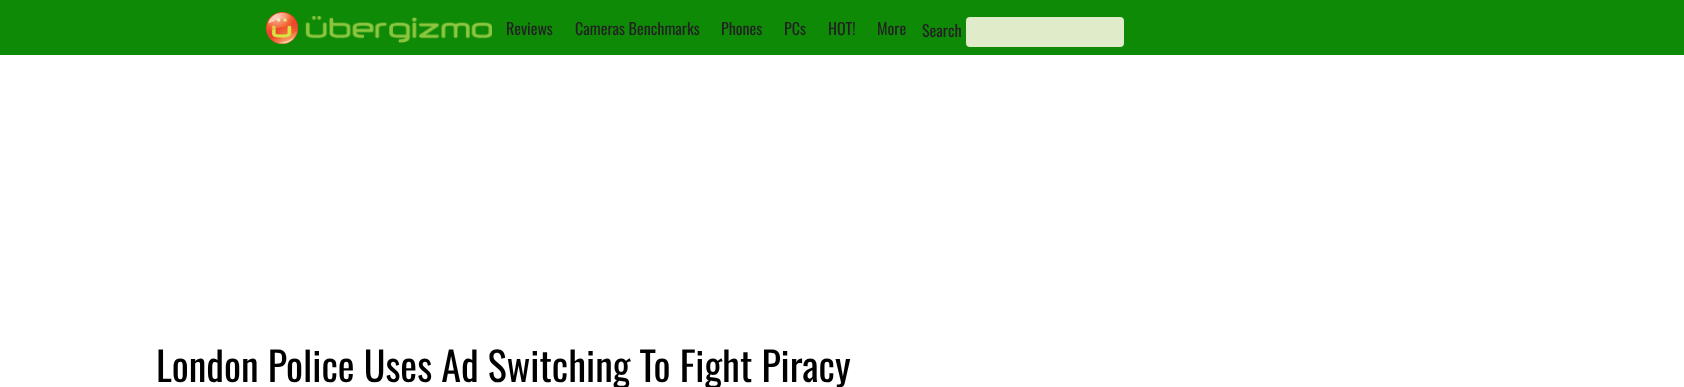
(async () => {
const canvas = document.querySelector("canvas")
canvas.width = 1684
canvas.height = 387
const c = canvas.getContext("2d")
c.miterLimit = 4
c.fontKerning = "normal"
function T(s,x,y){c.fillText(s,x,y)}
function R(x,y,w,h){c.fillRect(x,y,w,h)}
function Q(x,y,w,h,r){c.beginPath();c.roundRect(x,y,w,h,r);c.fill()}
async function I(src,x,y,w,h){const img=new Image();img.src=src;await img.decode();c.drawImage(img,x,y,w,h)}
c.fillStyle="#fff"
R(0,0,1684,387)
c.fillStyle="#0f8a07"
R(0,0,1684,55)
await I("1.png",266,12,32,32)
await I("2.png",305,15,187,28)
c.font="16px Oswald"
c.fillStyle="#222"
T("Reviews",506,35)
T("Cameras Benchmarks",575,35)
T("Phones",721,35)
T("PCs",784,35)
T("HOT!",828,35)
T("More",877,35)
T("Search",922,37)
c.fillStyle="#e0ebc9"
Q(966,17,158,30,4)
c.font="40px Oswald"
c.fillStyle="#000"
T("London Police Uses Ad Switching To Fight Piracy",156,382)
})()
